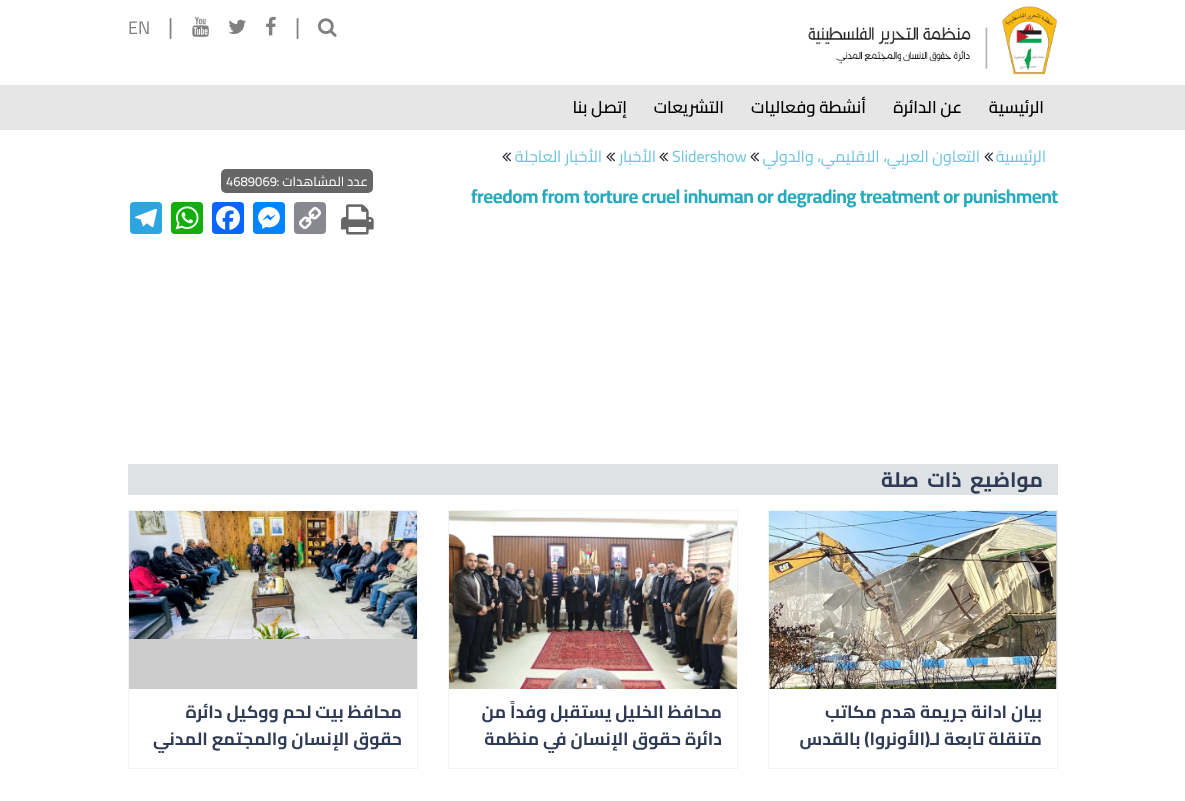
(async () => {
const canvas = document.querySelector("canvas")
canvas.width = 1185
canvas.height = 801
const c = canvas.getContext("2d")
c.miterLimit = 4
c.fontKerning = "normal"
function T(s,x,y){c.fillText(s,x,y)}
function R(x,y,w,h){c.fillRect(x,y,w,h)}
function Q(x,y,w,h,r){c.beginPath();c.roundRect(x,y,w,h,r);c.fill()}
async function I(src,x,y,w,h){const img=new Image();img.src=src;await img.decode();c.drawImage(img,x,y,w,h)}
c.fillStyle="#fff"
R(0,0,1185,801)
await I("1.png",808,6,250,69)
await I("2.png",318,18,19,19)
c.font="22px Cairo"
c.fillStyle="#808080"
T("|",295,34)
await I("3.png",266,16,10,20)
await I("4.png",228,19,18,15)
await I("5.png",192,16,17,21)
T("|",168,34)
c.font="18px Cairo"
T("EN",128,34)
c.fillStyle="#e6e6e6"
R(0,85,1185,45)
c.direction="rtl"
c.font="600 16.75px Cairo"
c.fillStyle="#000"
T("الرئيسية",1044,113)
T("عن الدائرة",962,113)
T("أنشطة وفعاليات",866,113)
T("التشريعات",724,113)
T("إتصل بنا",627,113)
c.font="16px Cairo"
c.fillStyle="#6ec5dd"
T("الرئيسية",1046,162)
await I("6.png",984,152,9,10)
T("التعاون العربي، الاقليمي، والدولي",980,162)
await I("6.png",750,152,9,10)
c.direction="ltr"
T("Slidershow",672,162)
await I("6.png",659,152,9,10)
c.direction="rtl"
T("الأخبار",656,162)
await I("6.png",606,152,9,10)
T("الأخبار العاجلة",602,162)
await I("6.png",502,152,9,10)
c.fillStyle="#666"
c.beginPath()
c.roundRect(277,169,96,24,[0,5,5,0])
c.fill()
c.font="13px Cairo"
c.fillStyle="#fff"
T("عدد المشاهدات :",368,186)
c.fillStyle="#666"
c.beginPath()
c.roundRect(221,169,56,24,[5,0,0,5])
c.fill()
c.direction="ltr"
c.fillStyle="#fff"
T("4689069",226,186)
await I("7.png",341,204,33,31)
c.fillStyle="#888990"
Q(294,202,32,32,4)
await I("8.png",299,207,22,22)
c.fillStyle="#0084ff"
Q(253,202,32,32,4)
await I("9.png",258,207,22,22)
c.fillStyle="#0866ff"
Q(212,202,32,32,4)
await I("10.png",216,206,24,24)
c.fillStyle="#12af0a"
Q(171,202,32,32,4)
await I("11.png",175,206,24,24)
c.fillStyle="#2ca5e0"
Q(130,202,32,32,4)
await I("12.png",135,208,22,20)
c.letterSpacing="-0.5px"
c.font="bold 19.2px Cairo"
c.fillStyle="#26abbe"
T("freedom from torture cruel inhuman or degrading treatment or punishment",471,203)
c.fillStyle="#dee2e4"
R(128,464,930,31)
c.wordSpacing="4px"
c.direction="rtl"
c.font="bold 20.75px Cairo"
c.fillStyle="#2f3b55"
T("مواضيع ذات صلة",1043,487)
c.strokeStyle="#f3f3f3"
c.strokeRect(768.5,510.5,289,258)
c.fillStyle="#ccc"
R(1056,511,1,178)
await I("13.png",769,511,287,178)
c.letterSpacing="0px"
c.wordSpacing="0px"
c.font="bold 17.6px Cairo"
c.fillStyle="#2f3b55"
T("بيان ادانة جريمة هدم مكاتب",1042,718)
T("متنقلة تابعة لـ(الأونروا) بالقدس",1042,745)
c.strokeRect(448.5,510.5,289,258)
await I("14.png",449,511,288,178)
T("محافظ الخليل يستقبل وفداً من",722,718)
T("دائرة حقوق الإنسان في منظمة",722,745)
c.strokeRect(128.5,510.5,289,258)
c.fillStyle="#ccc"
R(129,639,288,50)
await I("15.png",129,511,288,128)
c.fillStyle="#2f3b55"
T("محافظ بيت لحم ووكيل دائرة",402,718)
T("حقوق الإنسان والمجتمع المدني",402,745)
})()
